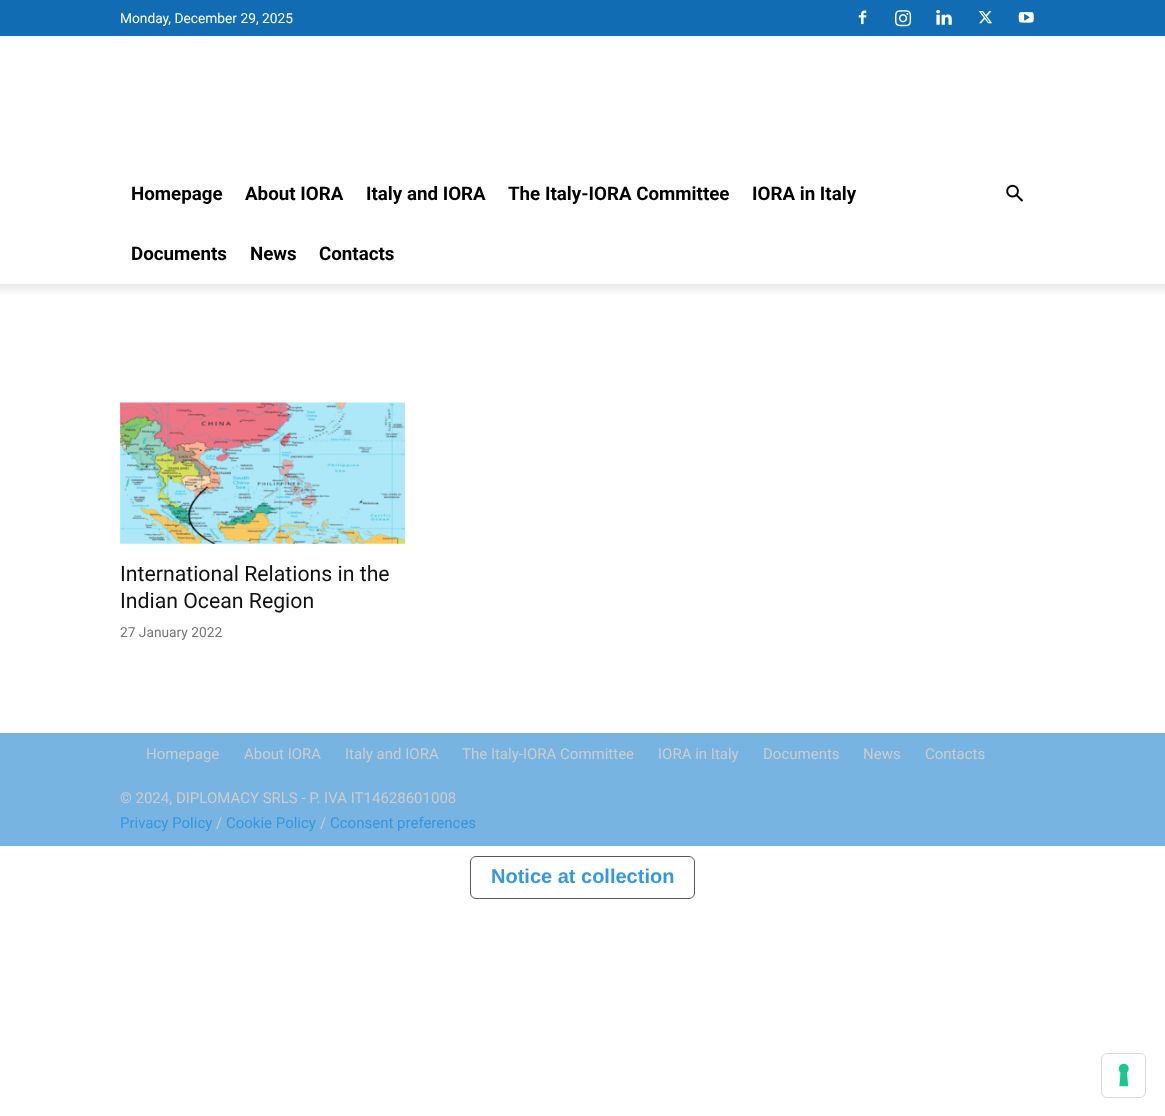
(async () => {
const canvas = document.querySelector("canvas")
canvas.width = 1165
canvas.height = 1116
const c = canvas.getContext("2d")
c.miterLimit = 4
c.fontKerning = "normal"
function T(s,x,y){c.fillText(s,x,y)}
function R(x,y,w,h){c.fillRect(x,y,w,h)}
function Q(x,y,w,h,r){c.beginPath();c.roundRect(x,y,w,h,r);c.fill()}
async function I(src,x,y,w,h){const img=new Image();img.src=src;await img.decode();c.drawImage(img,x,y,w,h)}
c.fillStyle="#fff"
R(0,0,1165,1116)
c.fillStyle="#126cb3"
R(0,0,1165,36)
c.font="13.75px Roboto"
c.fillStyle="#fff"
T("Monday, December 29, 2025",120,23)
await I("1.png",858,10,9,15)
await I("2.png",895,10,17,17)
await I("3.png",936,9,16,16)
await I("4.png",978,11,15,13)
await I("5.png",1018,12,16,11)
c.font="bold 18.75px Roboto"
c.fillStyle="#000"
T("Homepage",131,200)
T("About IORA",245,200)
T("Italy and IORA",366,200)
T("The Italy-IORA Committee",508,200)
T("IORA in Italy",752,200)
T("Documents",131,260)
T("News",250,260)
T("Contacts",319,260)
await I("6.png",1006,184,17,18)
await I("7.png",0,284,1165,10)
await I("8.png",120,402,285,142)
c.font="21.25px Roboto"
c.fillStyle="#111"
T("International Relations in the",120,581)
T("Indian Ocean Region",120,608)
c.font="13.75px Roboto"
c.fillStyle="#767676"
T("27 January 2022",120,637)
c.fillStyle="#78b4e2"
R(0,733,1165,113)
c.font="15px Roboto"
c.fillStyle="#ccc"
T("Homepage",146,759)
T("About IORA",244,759)
T("Italy and IORA",345,759)
T("The Italy-IORA Committee",462,759)
T("IORA in Italy",658,759)
T("Documents",763,759)
T("News",863,759)
T("Contacts",925,759)
T("© 2024, DIPLOMACY SRLS - P. IVA IT14628601008",120,803)
c.fillStyle="#3497e2"
T("Privacy Policy",120,828)
c.fillStyle="#ccc"
T("/",216,828)
c.fillStyle="#3497e2"
T("Cookie Policy",226,828)
c.fillStyle="#ccc"
T("/",320,828)
c.fillStyle="#3497e2"
T("Cconsent preferences",330,828)
c.beginPath()
c.roundRect(470.5,856.5,224,42,5.5)
c.strokeStyle="#595959"
c.stroke()
c.font="bold 20px Liberation Sans"
T("Notice at collection",491,883)
c.beginPath()
c.roundRect(1101.5,1053.5,44,44,5.5)
c.strokeStyle="#d9d9d9"
c.stroke()
c.fillStyle="#fff"
Q(1103,1054,42,42,5)
await I("9.png",1118,1063,11,24)
})()
